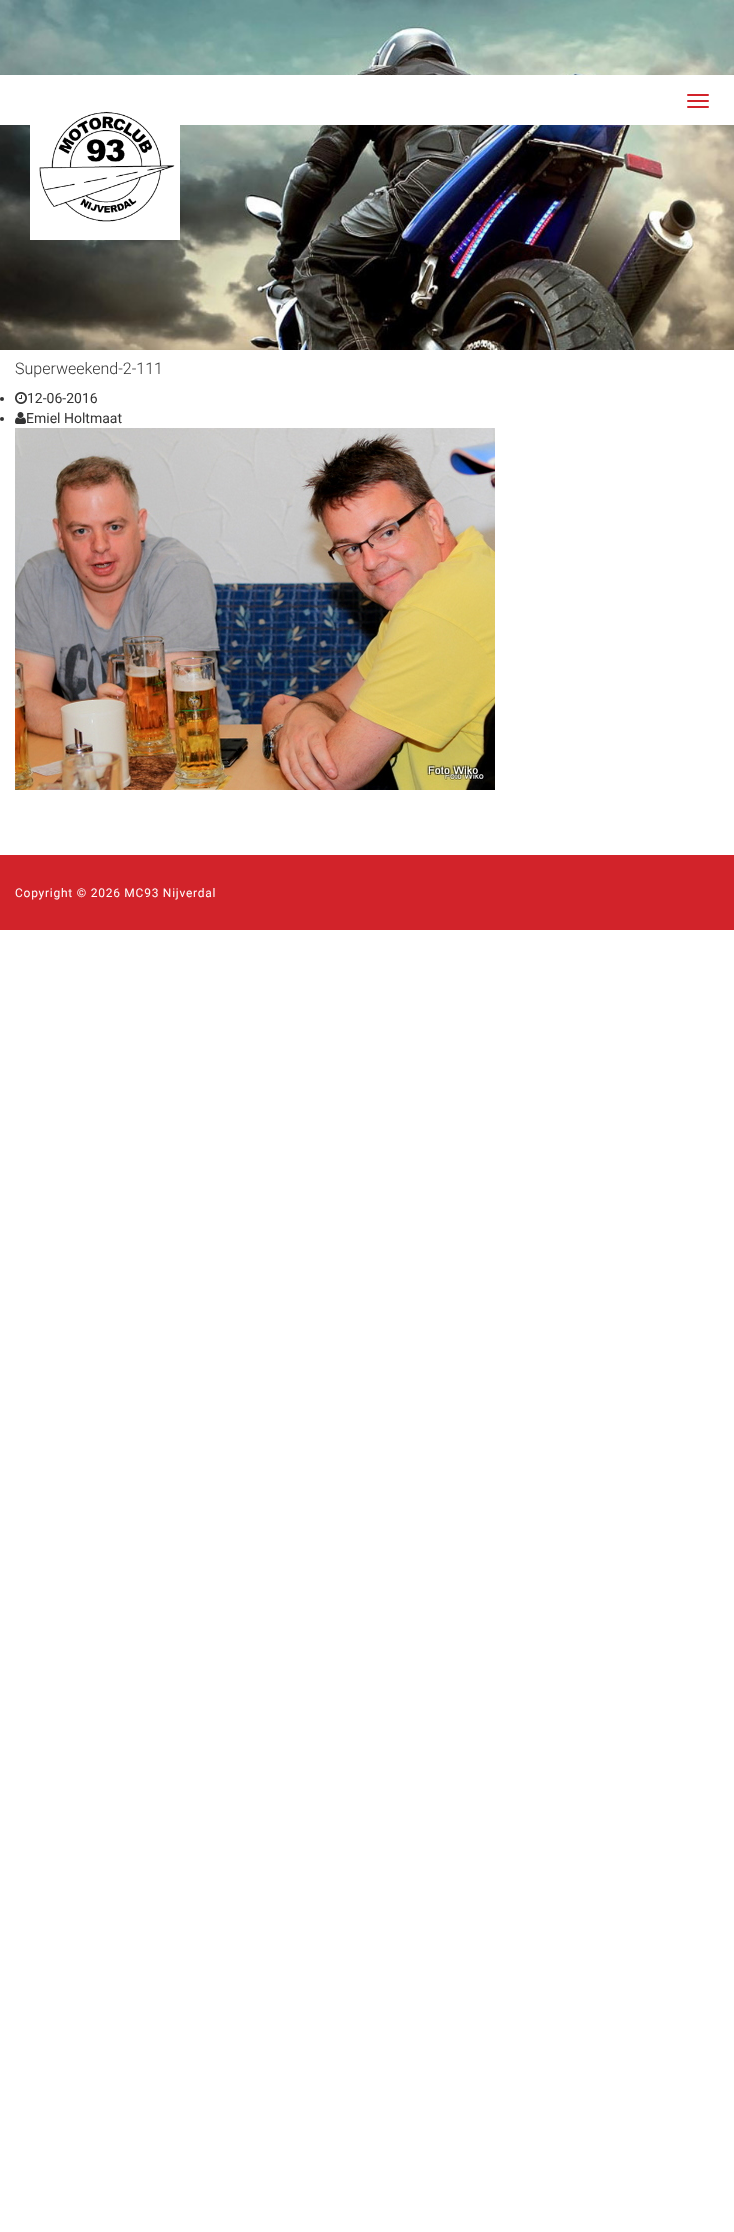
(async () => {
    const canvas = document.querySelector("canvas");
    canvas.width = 734;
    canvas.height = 2232;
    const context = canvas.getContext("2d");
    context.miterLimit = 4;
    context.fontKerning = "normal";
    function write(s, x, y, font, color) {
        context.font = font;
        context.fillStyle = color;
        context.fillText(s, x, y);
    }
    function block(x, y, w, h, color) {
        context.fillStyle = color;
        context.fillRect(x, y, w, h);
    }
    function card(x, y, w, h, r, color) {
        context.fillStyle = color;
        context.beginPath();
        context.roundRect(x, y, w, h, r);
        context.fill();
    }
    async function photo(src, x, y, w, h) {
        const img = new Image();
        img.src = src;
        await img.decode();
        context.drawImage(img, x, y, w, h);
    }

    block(0, 0, 734, 2232, "rgb(255, 255, 255)");
    await photo("media/1.png", 0, 0, 734, 350);
    block(0, 75, 734, 50, "rgb(255, 255, 255)");
    card(687, 94, 22, 2, 1, "rgb(210, 35, 42)");
    card(687, 100, 22, 2, 1, "rgb(210, 35, 42)");
    card(687, 106, 22, 2, 1, "rgb(210, 35, 42)");
    await photo("media/2.png", 30, 111, 150, 129);
    write("Superweekend-2-111", 15, 374, "300 16px Roboto", "rgb(51, 51, 51)");
    context.beginPath();
    context.arc(2, 399, 2, 0, Math.PI * 2);
    context.fill();
    await photo("media/3.png", 15, 392, 12, 12);
    write("12-06-2016", 27, 403, "14px Roboto", "rgb(51, 51, 51)");
    context.beginPath();
    context.arc(2, 419, 2, 0, Math.PI * 2);
    context.fill();
    await photo("media/4.png", 15, 412, 11, 12);
    write("Emiel Holtmaat", 26, 423, "14px Roboto", "rgb(51, 51, 51)");
    await photo("media/5.png", 15, 428, 480, 362);
    block(0, 855, 734, 75, "rgb(210, 35, 42)");
    context.letterSpacing = "0.75px";
    write("Copyright © 2026 MC93 Nijverdal", 15, 897, "12px Roboto", "rgb(255, 255, 255)");
})();
